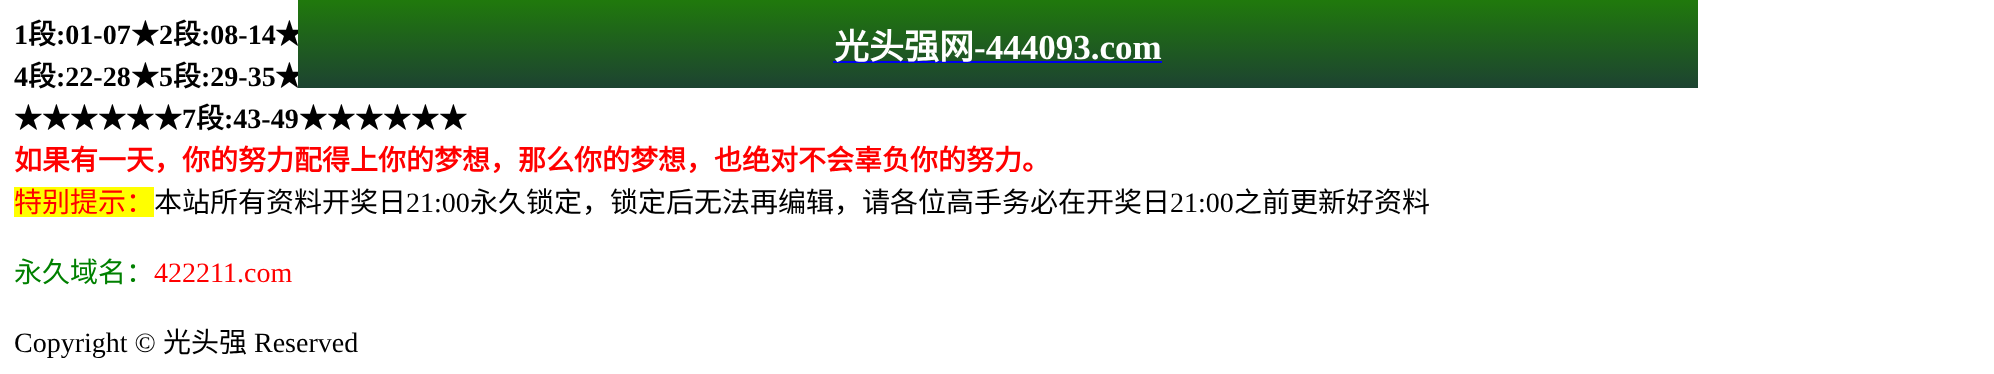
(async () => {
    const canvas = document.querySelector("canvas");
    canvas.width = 1994;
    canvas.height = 374;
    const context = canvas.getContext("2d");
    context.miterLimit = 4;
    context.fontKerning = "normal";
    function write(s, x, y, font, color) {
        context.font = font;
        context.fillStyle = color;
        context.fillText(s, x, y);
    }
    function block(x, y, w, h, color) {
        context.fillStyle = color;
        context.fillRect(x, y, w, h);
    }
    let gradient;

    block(0, 0, 1994, 374, "rgb(255, 255, 255)");
    write("1", 14, 44, "bold 28px Liberation Serif", "rgb(0, 0, 0)");
    write("段", 28, 44, "bold 28px Noto Sans CJK SC", "rgb(0, 0, 0)");
    write(":01-07", 56, 44, "bold 28px Liberation Serif", "rgb(0, 0, 0)");
    write("★", 131, 44, "bold 28px Noto Sans CJK SC", "rgb(0, 0, 0)");
    write("2", 159, 44, "bold 28px Liberation Serif", "rgb(0, 0, 0)");
    write("段", 173, 44, "bold 28px Noto Sans CJK SC", "rgb(0, 0, 0)");
    write(":08-14", 201, 44, "bold 28px Liberation Serif", "rgb(0, 0, 0)");
    write("★", 275, 44, "bold 28px Noto Sans CJK SC", "rgb(0, 0, 0)");
    write("4", 14, 86, "bold 28px Liberation Serif", "rgb(0, 0, 0)");
    write("段", 28, 86, "bold 28px Noto Sans CJK SC", "rgb(0, 0, 0)");
    write(":22-28", 56, 86, "bold 28px Liberation Serif", "rgb(0, 0, 0)");
    write("★", 131, 86, "bold 28px Noto Sans CJK SC", "rgb(0, 0, 0)");
    write("5", 159, 86, "bold 28px Liberation Serif", "rgb(0, 0, 0)");
    write("段", 173, 86, "bold 28px Noto Sans CJK SC", "rgb(0, 0, 0)");
    write(":29-35", 201, 86, "bold 28px Liberation Serif", "rgb(0, 0, 0)");
    write("★", 275, 86, "bold 28px Noto Sans CJK SC", "rgb(0, 0, 0)");
    write("★★★★★★", 14, 128, "bold 28px Noto Sans CJK SC", "rgb(0, 0, 0)");
    write("7", 182, 128, "bold 28px Liberation Serif", "rgb(0, 0, 0)");
    write("段", 196, 128, "bold 28px Noto Sans CJK SC", "rgb(0, 0, 0)");
    write(":43-49", 224, 128, "bold 28px Liberation Serif", "rgb(0, 0, 0)");
    write("★★★★★★", 299, 128, "bold 28px Noto Sans CJK SC", "rgb(0, 0, 0)");
    write("如果有一天，你的努力配得上你的梦想，那么你的梦想，也绝对不会辜负你的努力。", 14, 170, "bold 28px Noto Sans CJK SC", "rgb(255, 0, 0)");
    block(14, 187, 140, 30, "rgb(255, 255, 0)");
    write("特别提示：", 14, 212, "28px Noto Sans CJK SC", "rgb(255, 0, 0)");
    write("本站所有资料开奖日", 154, 212, "28px Noto Sans CJK SC", "rgb(0, 0, 0)");
    write("21:00", 406, 212, "28px Liberation Serif", "rgb(0, 0, 0)");
    write("永久锁定，锁定后无法再编辑，请各位高手务必在开奖日", 470, 212, "28px Noto Sans CJK SC", "rgb(0, 0, 0)");
    write("21:00", 1170, 212, "28px Liberation Serif", "rgb(0, 0, 0)");
    write("之前更新好资料", 1234, 212, "28px Noto Sans CJK SC", "rgb(0, 0, 0)");
    write("永久域名：", 14, 282, "28px Noto Sans CJK SC", "rgb(0, 128, 0)");
    write("422211.com", 154, 282, "28px Liberation Serif", "rgb(255, 0, 0)");
    write("Copyright ©", 14, 352, "28px Liberation Serif", "rgb(0, 0, 0)");
    write("光头强", 163, 352, "28px Noto Sans CJK SC", "rgb(0, 0, 0)");
    write("Reserved", 254, 352, "28px Liberation Serif", "rgb(0, 0, 0)");
    gradient = context.createLinearGradient(998, 88, 998, 0);
    gradient.addColorStop(0, "rgb(29, 67, 49)");
    gradient.addColorStop(1, "rgb(32, 121, 12)");
    context.fillStyle = gradient;
    context.fillRect(298, 0, 1400, 88);
    block(833, 61, 329, 2, "rgb(0, 0, 238)");
    write("光头强网", 834, 59, "bold 35px Noto Sans CJK SC", "rgb(255, 255, 255)");
    write("-444093.com", 974, 59, "bold 35px Liberation Serif", "rgb(255, 255, 255)");
})();
